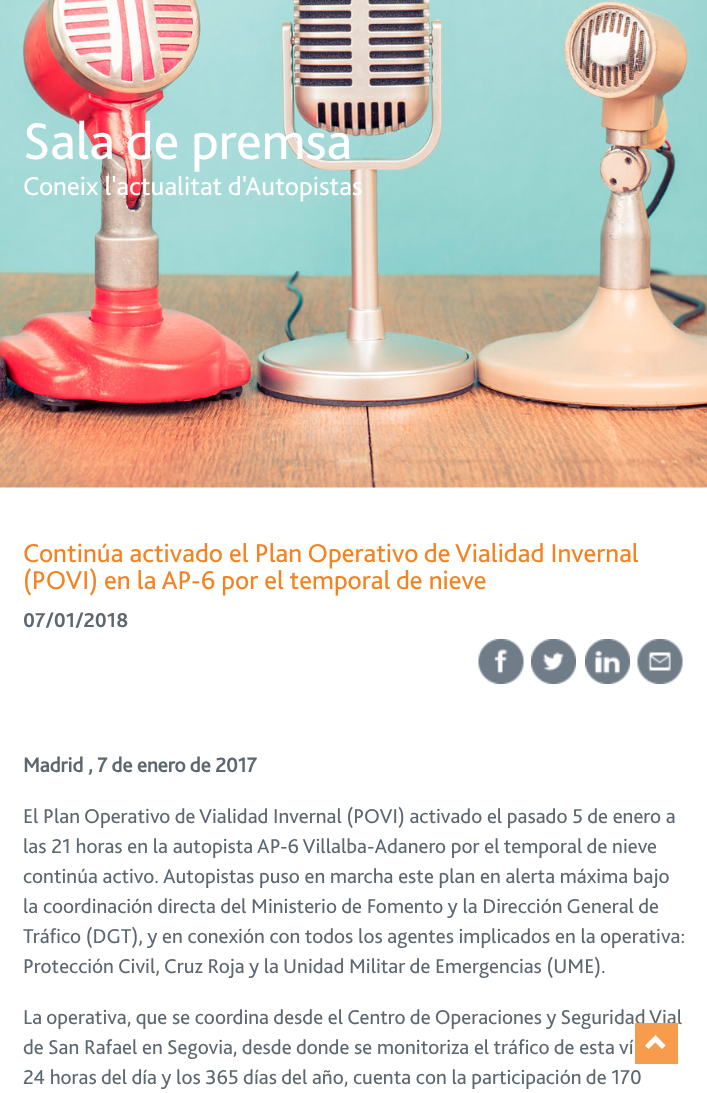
(async () => {
    const canvas = document.querySelector("canvas");
    canvas.width = 707;
    canvas.height = 1093;
    const context = canvas.getContext("2d");
    context.miterLimit = 4;
    context.fontKerning = "normal";
    function write(s, x, y, font, color) {
        context.font = font;
        context.fillStyle = color;
        context.fillText(s, x, y);
    }
    function block(x, y, w, h, color) {
        context.fillStyle = color;
        context.fillRect(x, y, w, h);
    }
    async function photo(src, x, y, w, h) {
        const img = new Image();
        img.src = src;
        await img.decode();
        context.drawImage(img, x, y, w, h);
    }

    block(0, 0, 707, 1093, "rgb(255, 255, 255)");
    await photo("media/1.png", 0, 0, 707, 488);
    write("Sala de premsa", 23, 159, "54px 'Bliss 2'", "rgb(255, 255, 255)");
    write("Coneix l'actualitat d'Autopistas", 23, 195, "27px 'Bliss 2'", "rgb(255, 255, 255)");
    write("Continúa activado el Plan Operativo de Vialidad Invernal", 23, 562, "27px 'Bliss 2'", "rgb(245, 130, 32)");
    write("(POVI) en la AP-6 por el temporal de nieve", 23, 589, "27px 'Bliss 2'", "rgb(245, 130, 32)");
    write("07/01/2018", 23, 627, "bold 21px 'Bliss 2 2'", "rgb(93, 103, 112)");
    await photo("media/2.png", 478, 639, 46, 45);
    await photo("media/3.png", 531, 639, 45, 45);
    await photo("media/4.png", 585, 639, 45, 45);
    await photo("media/5.png", 637, 639, 46, 45);
    write("Madrid , 7 de enero de 2017", 23, 772, "bold 21px 'Bliss 2'", "rgb(93, 103, 112)");
    write("El Plan Operativo de Vialidad Invernal (POVI) activado el pasado 5 de enero a", 23, 823, "21px 'Bliss 2'", "rgb(93, 103, 112)");
    write("las 21 horas en la autopista AP-6 Villalba-Adanero por el temporal de nieve", 23, 853, "21px 'Bliss 2'", "rgb(93, 103, 112)");
    write("continúa activo. Autopistas puso en marcha este plan en alerta máxima bajo", 23, 883, "21px 'Bliss 2'", "rgb(93, 103, 112)");
    write("la coordinación directa del Ministerio de Fomento y la Dirección General de", 23, 913, "21px 'Bliss 2'", "rgb(93, 103, 112)");
    write("Tráfico (DGT), y en conexión con todos los agentes implicados en la operativa:", 23, 943, "21px 'Bliss 2'", "rgb(93, 103, 112)");
    write("Protección Civil, Cruz Roja y la Unidad Militar de Emergencias (UME).", 23, 973, "21px 'Bliss 2'", "rgb(93, 103, 112)");
    write("La operativa, que se coordina desde el Centro de Operaciones y Seguridad Vial", 23, 1024, "21px 'Bliss 2'", "rgb(93, 103, 112)");
    write("de San Rafael en Segovia, desde donde se monitoriza el tráfico de esta ví", 23, 1054, "21px 'Bliss 2'", "rgb(93, 103, 112)");
    write("24 horas del día y los 365 días del año, cuenta con la participación de 170", 23, 1084, "21px 'Bliss 2'", "rgb(93, 103, 112)");
    block(635, 1023, 43, 41, "rgb(247, 155, 77)");
    context.fillStyle = "rgb(255, 255, 255)";
    context.beginPath();
    context.moveTo(665.5, 1045.5);
    context.lineTo(662, 1049);
    context.lineTo(655.5, 1042.5);
    context.lineTo(648.5, 1049);
    context.lineTo(645, 1045.5);
    context.lineTo(655.5, 1035);
    context.closePath();
    context.fill();
})();
